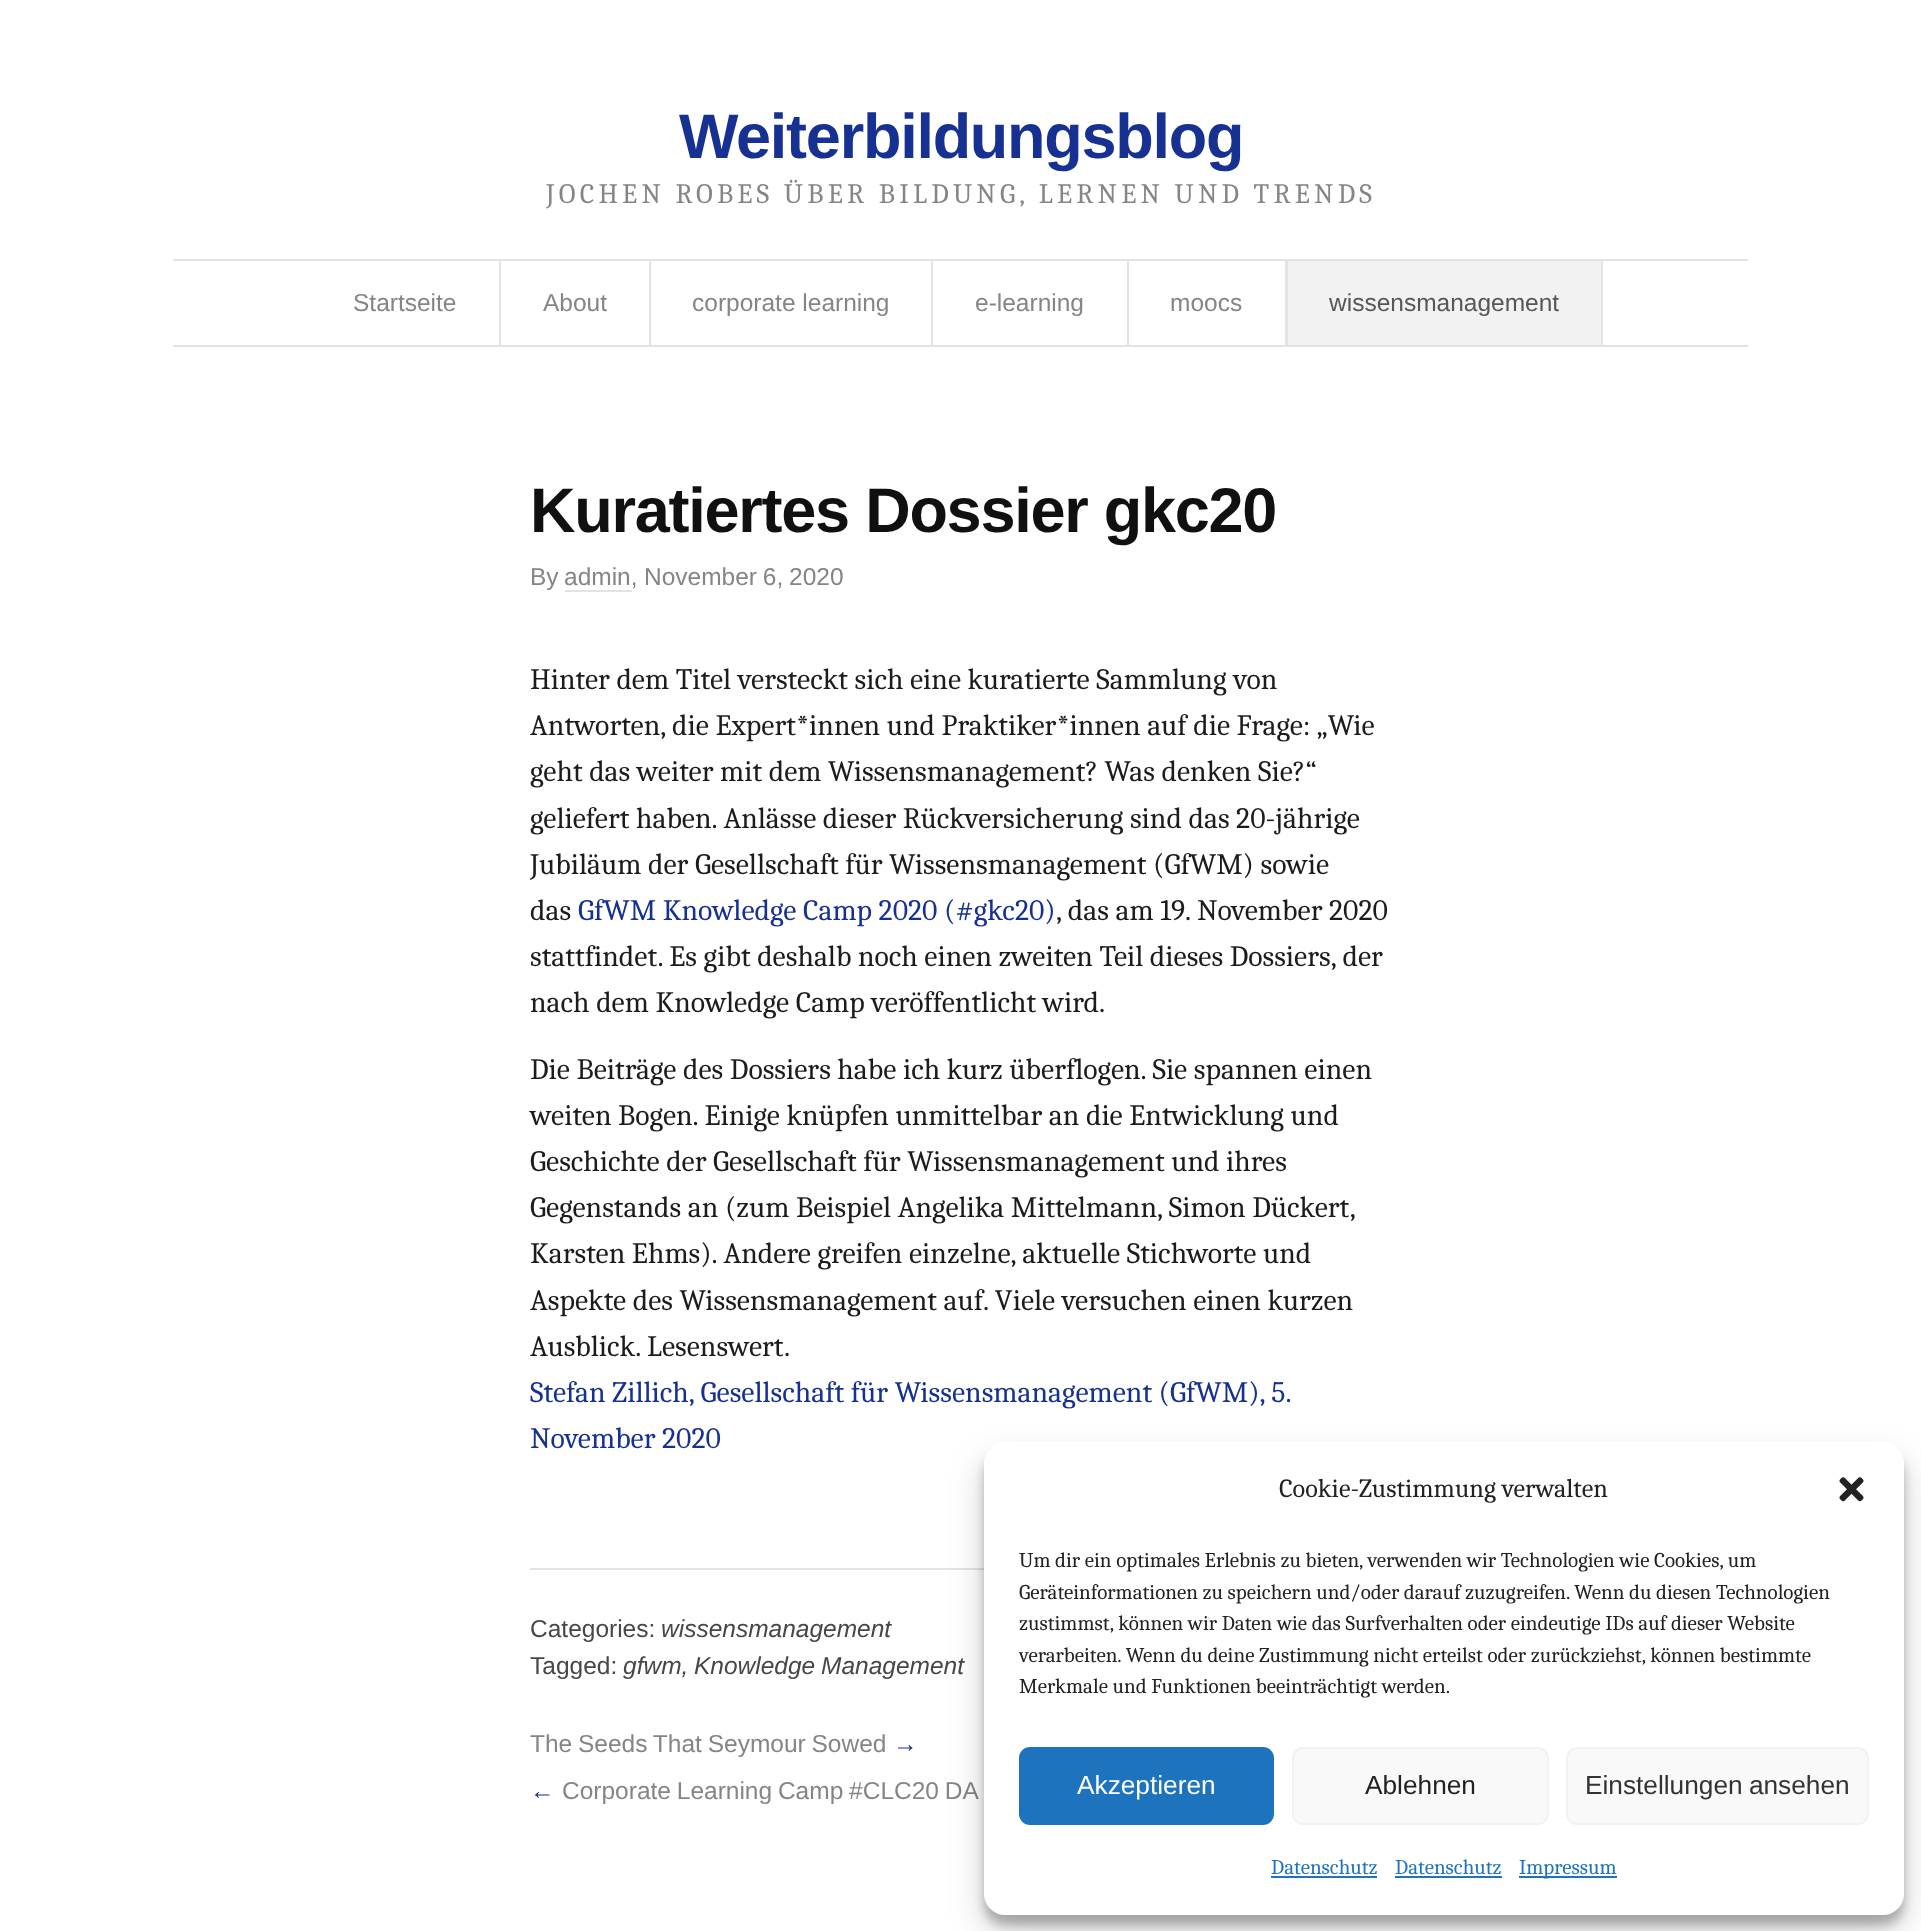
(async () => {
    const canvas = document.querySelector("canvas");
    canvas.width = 1921;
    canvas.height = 1931;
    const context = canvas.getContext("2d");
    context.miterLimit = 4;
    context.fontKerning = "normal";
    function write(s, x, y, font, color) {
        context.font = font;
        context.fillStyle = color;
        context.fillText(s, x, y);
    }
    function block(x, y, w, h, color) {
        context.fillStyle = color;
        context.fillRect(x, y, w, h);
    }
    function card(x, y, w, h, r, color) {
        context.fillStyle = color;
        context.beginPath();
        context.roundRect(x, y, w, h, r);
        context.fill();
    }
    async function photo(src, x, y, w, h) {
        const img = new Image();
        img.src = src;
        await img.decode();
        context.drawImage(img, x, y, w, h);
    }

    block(0, 0, 1921, 1931, "rgb(255, 255, 255)");
    context.letterSpacing = "-1.25px";
    write("Weiterbildungsblog", 679, 158, "bold 63px Liberation Sans", "rgb(23, 49, 146)");
    context.letterSpacing = "4.2px";
    write("JOCHEN ROBES ÜBER BILDUNG, LERNEN UND TRENDS", 546, 203, "28px Caladea", "rgb(133, 133, 133)");
    block(173, 259, 1575, 2, "rgb(227, 227, 227)");
    block(173, 345, 1575, 2, "rgb(227, 227, 227)");
    block(499, 261, 2, 84, "rgb(227, 227, 227)");
    context.letterSpacing = "0px";
    write("Startseite", 353, 311, "24.5px Liberation Sans", "rgb(133, 133, 133)");
    block(649, 261, 2, 84, "rgb(227, 227, 227)");
    write("About", 543, 311, "24.5px Liberation Sans", "rgb(133, 133, 133)");
    block(931, 261, 2, 84, "rgb(227, 227, 227)");
    write("corporate learning", 692, 311, "24.5px Liberation Sans", "rgb(133, 133, 133)");
    block(1127, 261, 2, 84, "rgb(227, 227, 227)");
    write("e-learning", 975, 311, "24.5px Liberation Sans", "rgb(133, 133, 133)");
    block(1285, 261, 3, 84, "rgb(227, 227, 227)");
    write("moocs", 1170, 311, "24.5px Liberation Sans", "rgb(133, 133, 133)");
    block(1288, 261, 313, 84, "rgb(242, 242, 242)");
    block(1601, 261, 2, 84, "rgb(227, 227, 227)");
    write("wissensmanagement", 1329, 311, "24.5px Liberation Sans", "rgb(87, 87, 87)");
    context.letterSpacing = "-1.25px";
    write("Kuratiertes Dossier gkc20", 530, 532, "bold 63px Liberation Sans", "rgb(16, 16, 16)");
    context.letterSpacing = "0px";
    write("By", 530, 585, "24.5px Liberation Sans", "rgb(133, 133, 133)");
    write("admin,", 564, 585, "24.5px Liberation Sans", "rgb(133, 133, 133)");
    block(565, 590, 67, 2, "rgb(227, 227, 227)");
    context.wordSpacing = "-1px";
    write("November 6, 2020", 644, 585, "24.5px Liberation Sans", "rgb(133, 133, 133)");
    context.wordSpacing = "0px";
    write("Hinter dem Titel versteckt sich eine kuratierte Sammlung von", 530, 689, "29.75px Caladea", "rgb(28, 28, 28)");
    write("Antworten, die Expert*innen und Praktiker*innen auf die Frage: „Wie", 530, 735, "29.75px Caladea", "rgb(28, 28, 28)");
    write("geht das weiter mit dem Wissensmanagement? Was denken Sie?“", 530, 781, "29.75px Caladea", "rgb(28, 28, 28)");
    write("geliefert haben. Anlässe dieser Rückversicherung sind das 20-jährige", 530, 828, "29.75px Caladea", "rgb(28, 28, 28)");
    write("Jubiläum der Gesellschaft für Wissensmanagement (GfWM) sowie", 530, 874, "29.75px Caladea", "rgb(28, 28, 28)");
    write("das", 530, 920, "29.75px Caladea", "rgb(28, 28, 28)");
    write("GfWM Knowledge Camp 2020 (#gkc20)", 578, 920, "29.75px Caladea", "rgb(23, 49, 146)");
    write(", das am 19. November 2020", 1056, 920, "29.75px Caladea", "rgb(28, 28, 28)");
    write("stattfindet. Es gibt deshalb noch einen zweiten Teil dieses Dossiers, der", 530, 966, "29.75px Caladea", "rgb(28, 28, 28)");
    write("nach dem Knowledge Camp veröffentlicht wird.", 530, 1012, "29.75px Caladea", "rgb(28, 28, 28)");
    write("Die Beiträge des Dossiers habe ich kurz überflogen. Sie spannen einen", 530, 1079, "29.75px Caladea", "rgb(28, 28, 28)");
    write("weiten Bogen. Einige knüpfen unmittelbar an die Entwicklung und", 530, 1125, "29.75px Caladea", "rgb(28, 28, 28)");
    write("Geschichte der Gesellschaft für Wissensmanagement und ihres", 530, 1171, "29.75px Caladea", "rgb(28, 28, 28)");
    write("Gegenstands an (zum Beispiel Angelika Mittelmann, Simon Dückert,", 530, 1217, "29.75px Caladea", "rgb(28, 28, 28)");
    write("Karsten Ehms). Andere greifen einzelne, aktuelle Stichworte und", 530, 1263, "29.75px Caladea", "rgb(28, 28, 28)");
    write("Aspekte des Wissensmanagement auf. Viele versuchen einen kurzen", 530, 1310, "29.75px Caladea", "rgb(28, 28, 28)");
    write("Ausblick. Lesenswert.", 530, 1356, "29.75px Caladea", "rgb(28, 28, 28)");
    write("Stefan Zillich, Gesellschaft für Wissensmanagement (GfWM), 5.", 530, 1402, "29.75px Caladea", "rgb(23, 49, 146)");
    write("November 2020", 530, 1448, "29.75px Caladea", "rgb(23, 49, 146)");
    block(530, 1568, 454, 2, "rgb(227, 227, 227)");
    write("Categories:", 530, 1637, "24.5px Liberation Sans", "rgb(71, 71, 71)");
    write("wissensmanagement", 661, 1637, "italic 24.5px Liberation Sans", "rgb(71, 71, 71)");
    write("Tagged:", 530, 1674, "24.5px Liberation Sans", "rgb(71, 71, 71)");
    write("gfwm,", 623, 1674, "italic 24.5px Liberation Sans", "rgb(71, 71, 71)");
    context.wordSpacing = "-1px";
    write("Knowledge Management", 694, 1674, "italic 24.5px Liberation Sans", "rgb(71, 71, 71)");
    write("The Seeds That Seymour Sowed", 530, 1752, "24.5px Liberation Sans", "rgb(133, 133, 133)");
    context.wordSpacing = "0px";
    write("→", 893, 1752, "24.5px Liberation Sans", "rgb(23, 49, 146)");
    write("←", 530, 1799, "24.5px Liberation Sans", "rgb(23, 49, 146)");
    context.wordSpacing = "-1px";
    write("Corporate Learning Camp #CLC20 DA", 562, 1799, "24.5px Liberation Sans", "rgb(133, 133, 133)");
    context.fillStyle = "rgba(0, 0, 0, 0.23)";
    context.filter = "blur(5px)";
    context.beginPath();
    context.roundRect(984, 1453, 920, 472, 21);
    context.fill();
    context.filter = "none";
    context.fillStyle = "rgba(0, 0, 0, 0.19)";
    context.filter = "blur(17.5px)";
    context.beginPath();
    context.roundRect(984, 1460, 920, 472, 21);
    context.fill();
    context.filter = "none";
    card(984, 1442, 920, 473, 21, "rgb(255, 255, 255)");
    context.wordSpacing = "0px";
    write("Cookie-Zustimmung verwalten", 1279, 1497, "26.25px Caladea", "rgb(34, 34, 34)");
    await photo("media/1.png", 1839, 1477, 25, 25);
    write("Um dir ein optimales Erlebnis zu bieten, verwenden wir Technologien wie Cookies, um", 1019, 1567, "21px Caladea", "rgb(34, 34, 34)");
    write("Geräteinformationen zu speichern und/oder darauf zuzugreifen. Wenn du diesen Technologien", 1019, 1599, "21px Caladea", "rgb(34, 34, 34)");
    write("zustimmst, können wir Daten wie das Surfverhalten oder eindeutige IDs auf dieser Website", 1019, 1630, "21px Caladea", "rgb(34, 34, 34)");
    context.save();
    context.beginPath();
    context.rect(1019, 1545, 850, 167);
    context.clip();
    write("verarbeiten. Wenn du deine Zustimmung nicht erteilst oder zurückziehst, können bestimmte", 1019, 1662, "21px Caladea", "rgb(34, 34, 34)");
    context.restore();
    write("Merkmale und Funktionen beeinträchtigt werden.", 1019, 1693, "21px Caladea", "rgb(34, 34, 34)");
    context.fillStyle = "rgb(30, 115, 190)";
    context.beginPath();
    context.roundRect(1020, 1748, 253, 76, 10);
    context.fill();
    context.strokeStyle = "rgb(30, 115, 190)";
    context.lineWidth = 2;
    context.stroke();
    write("Akzeptieren", 1077, 1794, "26.25px Liberation Sans", "rgb(255, 255, 255)");
    context.fillStyle = "rgb(249, 249, 249)";
    context.beginPath();
    context.roundRect(1293, 1748, 255, 76, 10);
    context.fill();
    context.strokeStyle = "rgb(242, 242, 242)";
    context.stroke();
    write("Ablehnen", 1365, 1794, "26.25px Liberation Sans", "rgb(34, 34, 34)");
    context.fillStyle = "rgb(249, 249, 249)";
    context.beginPath();
    context.roundRect(1567, 1748, 301, 76, 10);
    context.fill();
    context.stroke();
    context.wordSpacing = "-1px";
    write("Einstellungen ansehen", 1585, 1794, "26.25px Liberation Sans", "rgb(51, 51, 51)");
    context.wordSpacing = "0px";
    write("Datenschutz", 1271, 1874, "21px Caladea", "rgb(30, 115, 190)");
    block(1271, 1876, 106, 2, "rgb(30, 115, 190)");
    write("Datenschutz", 1395, 1874, "21px Caladea", "rgb(30, 115, 190)");
    block(1395, 1876, 107, 2, "rgb(30, 115, 190)");
    block(1519, 1876, 98, 2, "rgb(30, 115, 190)");
    write("Impressum", 1519, 1874, "21px Caladea", "rgb(30, 115, 190)");
})();
